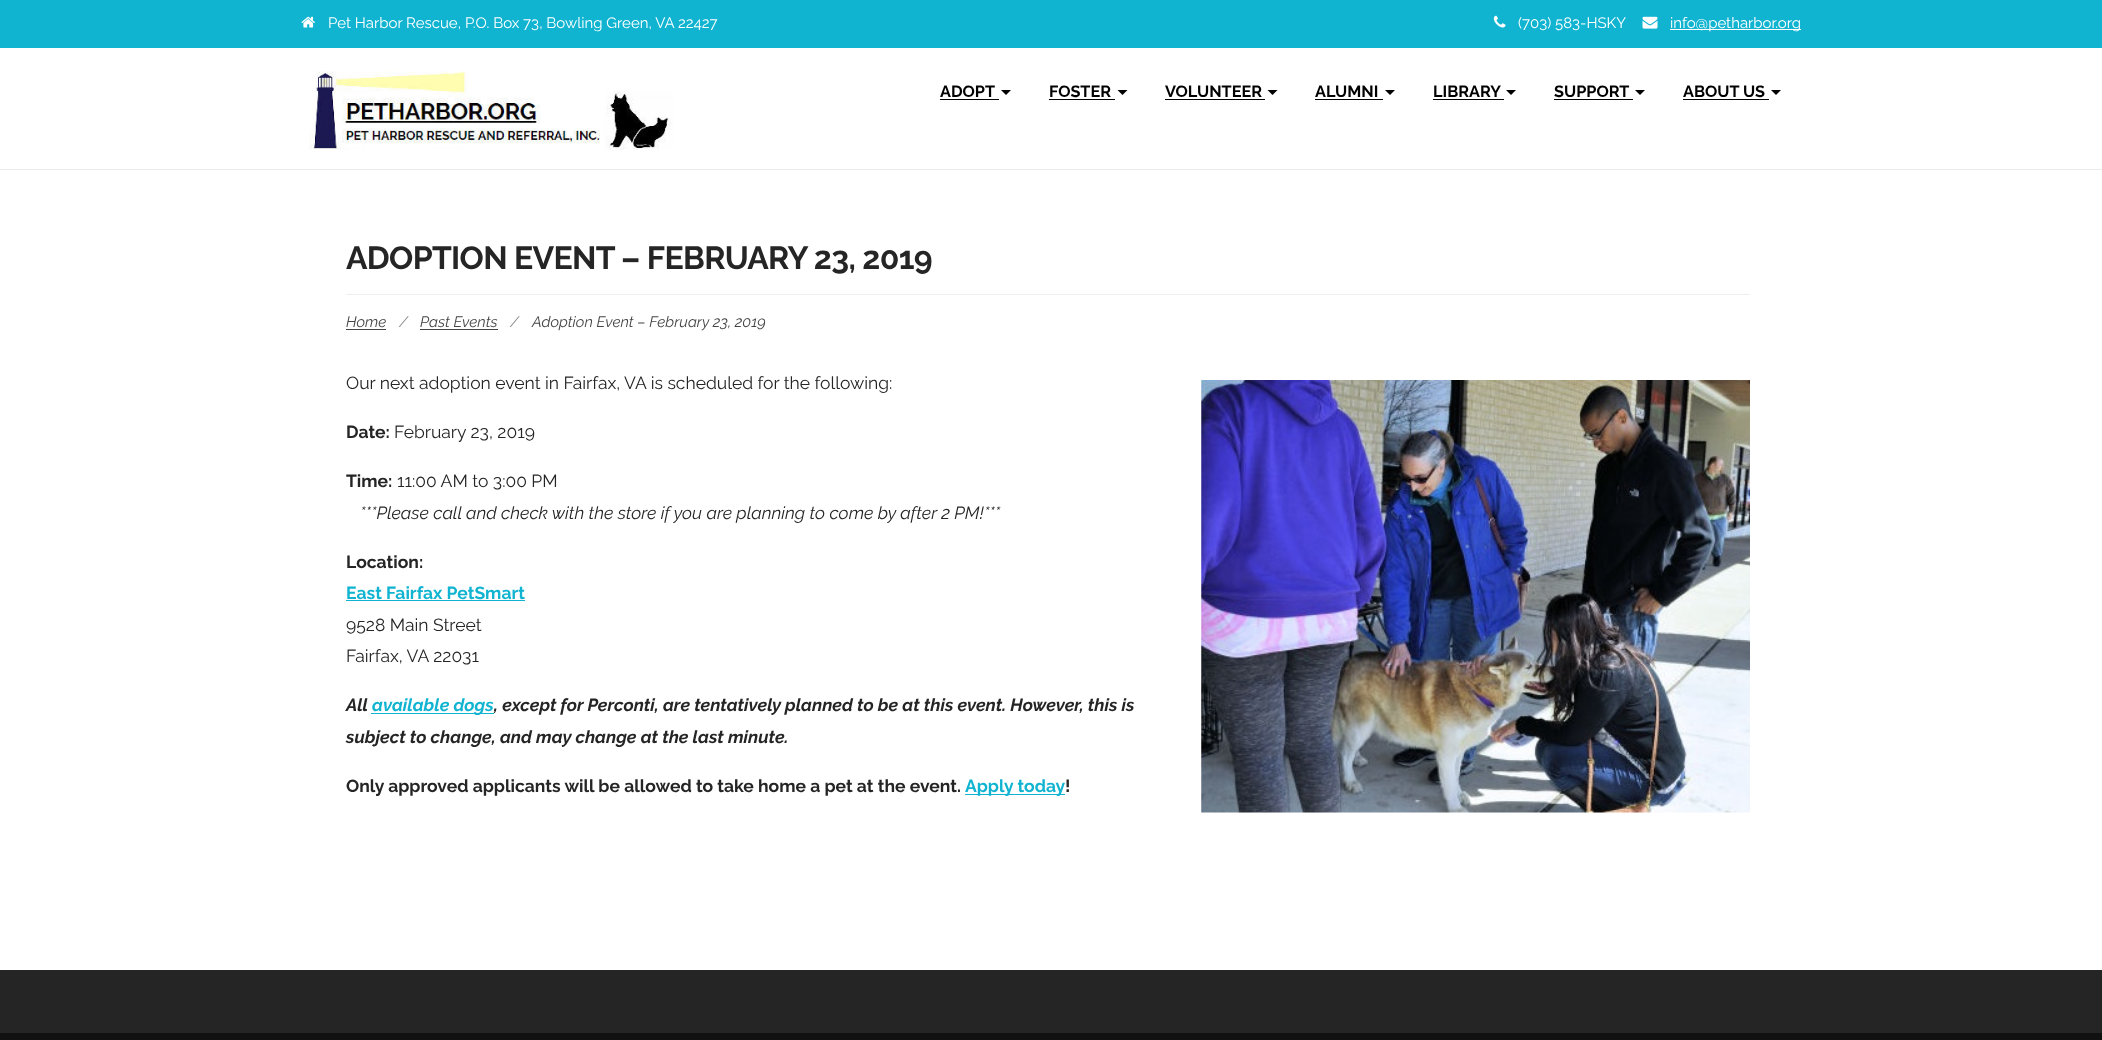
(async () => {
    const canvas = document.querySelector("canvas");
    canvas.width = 2102;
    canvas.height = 1040;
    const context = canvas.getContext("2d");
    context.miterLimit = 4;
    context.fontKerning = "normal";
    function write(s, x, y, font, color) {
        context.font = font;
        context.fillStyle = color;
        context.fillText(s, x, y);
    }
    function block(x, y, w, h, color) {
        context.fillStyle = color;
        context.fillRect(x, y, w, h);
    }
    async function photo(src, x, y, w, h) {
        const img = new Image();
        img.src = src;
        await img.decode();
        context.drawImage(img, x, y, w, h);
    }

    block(0, 0, 2102, 1040, "rgb(255, 255, 255)");
    block(0, 0, 2102, 48, "rgb(16, 180, 209)");
    await photo("media/1.png", 301, 16, 14, 12);
    write("Pet Harbor Rescue, P.O. Box 73, Bowling Green, VA 22427", 328, 28, "15px Raleway", "rgb(255, 255, 255)");
    await photo("media/2.png", 1493, 15, 13, 13);
    write("(703) 583-HSKY", 1518, 28, "15px Raleway", "rgb(255, 255, 255)");
    await photo("media/3.png", 1642, 16, 16, 13);
    block(1670, 29, 131, 1, "rgb(255, 255, 255)");
    write("info@petharbor.org", 1670, 28, "15px Raleway", "rgb(255, 255, 255)");
    block(0, 169, 2102, 1, "rgb(234, 234, 234)");
    await photo("media/4.png", 309, 71, 364, 79);
    write("ADOPT", 940, 97, "bold 16.25px Raleway", "rgb(0, 0, 0)");
    block(940, 99, 59, 1, "rgb(0, 0, 0)");
    context.beginPath();
    context.moveTo(1001, 90);
    context.lineTo(1011, 90);
    context.lineTo(1006, 95);
    context.closePath();
    context.fill();
    write("FOSTER", 1049, 97, "bold 16.25px Raleway", "rgb(0, 0, 0)");
    block(1049, 99, 66, 1, "rgb(0, 0, 0)");
    context.beginPath();
    context.moveTo(1117.5, 90);
    context.lineTo(1127.5, 90);
    context.lineTo(1122.5, 95);
    context.closePath();
    context.fill();
    write("VOLUNTEER", 1165, 97, "bold 16.25px Raleway", "rgb(0, 0, 0)");
    block(1165, 99, 100, 1, "rgb(0, 0, 0)");
    context.beginPath();
    context.moveTo(1267.5, 90);
    context.lineTo(1277.5, 90);
    context.lineTo(1272.5, 95);
    context.closePath();
    context.fill();
    write("ALUMNI", 1315, 97, "bold 16.25px Raleway", "rgb(0, 0, 0)");
    block(1315, 99, 68, 1, "rgb(0, 0, 0)");
    context.beginPath();
    context.moveTo(1385, 90);
    context.lineTo(1395, 90);
    context.lineTo(1390, 95);
    context.closePath();
    context.fill();
    write("LIBRARY", 1433, 97, "bold 16.25px Raleway", "rgb(0, 0, 0)");
    block(1433, 99, 71, 1, "rgb(0, 0, 0)");
    context.beginPath();
    context.moveTo(1506, 90);
    context.lineTo(1516, 90);
    context.lineTo(1511, 95);
    context.closePath();
    context.fill();
    write("SUPPORT", 1554, 97, "bold 16.25px Raleway", "rgb(0, 0, 0)");
    block(1554, 99, 79, 1, "rgb(0, 0, 0)");
    context.beginPath();
    context.moveTo(1635, 90);
    context.lineTo(1645, 90);
    context.lineTo(1640, 95);
    context.closePath();
    context.fill();
    write("ABOUT US", 1683, 97, "bold 16.25px Raleway", "rgb(0, 0, 0)");
    block(1683, 99, 86, 1, "rgb(0, 0, 0)");
    context.beginPath();
    context.moveTo(1771, 90);
    context.lineTo(1781, 90);
    context.lineTo(1776, 95);
    context.closePath();
    context.fill();
    context.letterSpacing = "-0.65px";
    write("ADOPTION EVENT – FEBRUARY 23, 2019", 346, 269, "bold 32px Raleway", "rgb(37, 37, 37)");
    block(346, 294, 1404, 1, "rgb(238, 238, 238)");
    context.letterSpacing = "0px";
    write("Home", 346, 327, "italic 15px Raleway", "rgb(68, 68, 68)");
    block(346, 329, 40, 1, "rgb(68, 68, 68)");
    write("/", 399, 327, "italic 15px Raleway", "rgb(136, 136, 136)");
    write("Past Events", 420, 327, "italic 15px Raleway", "rgb(68, 68, 68)");
    block(420, 329, 78, 1, "rgb(68, 68, 68)");
    write("/", 510, 327, "italic 15px Raleway", "rgb(136, 136, 136)");
    write("Adoption Event – February 23, 2019", 532, 327, "italic 15px Raleway", "rgb(68, 68, 68)");
    write("Our next adoption event in Fairfax, VA is scheduled for the following:", 346, 389, "17.5px Raleway", "rgb(37, 37, 37)");
    await photo("media/5.png", 1201, 380, 549, 433);
    write("Date:", 346, 438, "bold 17.5px Raleway", "rgb(37, 37, 37)");
    write("February 23, 2019", 394, 438, "17.5px Raleway", "rgb(37, 37, 37)");
    write("Time:", 346, 487, "bold 17.5px Raleway", "rgb(37, 37, 37)");
    write("11:00 AM to 3:00 PM", 397, 487, "17.5px Raleway", "rgb(37, 37, 37)");
    write("***Please call and check with the store if you are planning to come by after 2 PM!***", 360, 519, "italic 17.5px Raleway", "rgb(37, 37, 37)");
    write("Location:", 346, 568, "bold 17.5px Raleway", "rgb(37, 37, 37)");
    write("East Fairfax PetSmart", 346, 599, "bold 17.5px Raleway", "rgb(16, 180, 209)");
    block(346, 600, 179, 1, "rgb(16, 180, 209)");
    write("9528 Main Street", 346, 631, "17.5px Raleway", "rgb(37, 37, 37)");
    write("Fairfax, VA 22031", 346, 662, "17.5px Raleway", "rgb(37, 37, 37)");
    write("All", 346, 711, "italic bold 17.5px Raleway", "rgb(37, 37, 37)");
    block(371, 713, 123, 1, "rgb(16, 180, 209)");
    write("available dogs", 372, 711, "italic bold 17.5px Raleway", "rgb(16, 180, 209)");
    write(", except for Perconti, are tentatively planned to be at this event. However, this is", 494, 711, "italic bold 17.5px Raleway", "rgb(37, 37, 37)");
    write("subject to change, and may change at the last minute.", 346, 743, "italic bold 17.5px Raleway", "rgb(37, 37, 37)");
    write("Only approved applicants will be allowed to take home a pet at the event.", 346, 792, "bold 17.5px Raleway", "rgb(37, 37, 37)");
    block(965, 794, 100, 1, "rgb(16, 180, 209)");
    write("Apply today", 965, 792, "bold 17.5px Raleway", "rgb(16, 180, 209)");
    write("!", 1065, 792, "bold 17.5px Raleway", "rgb(37, 37, 37)");
    block(0, 970, 2102, 63, "rgb(37, 37, 37)");
    block(0, 1033, 2102, 7, "rgb(17, 17, 17)");
})();
